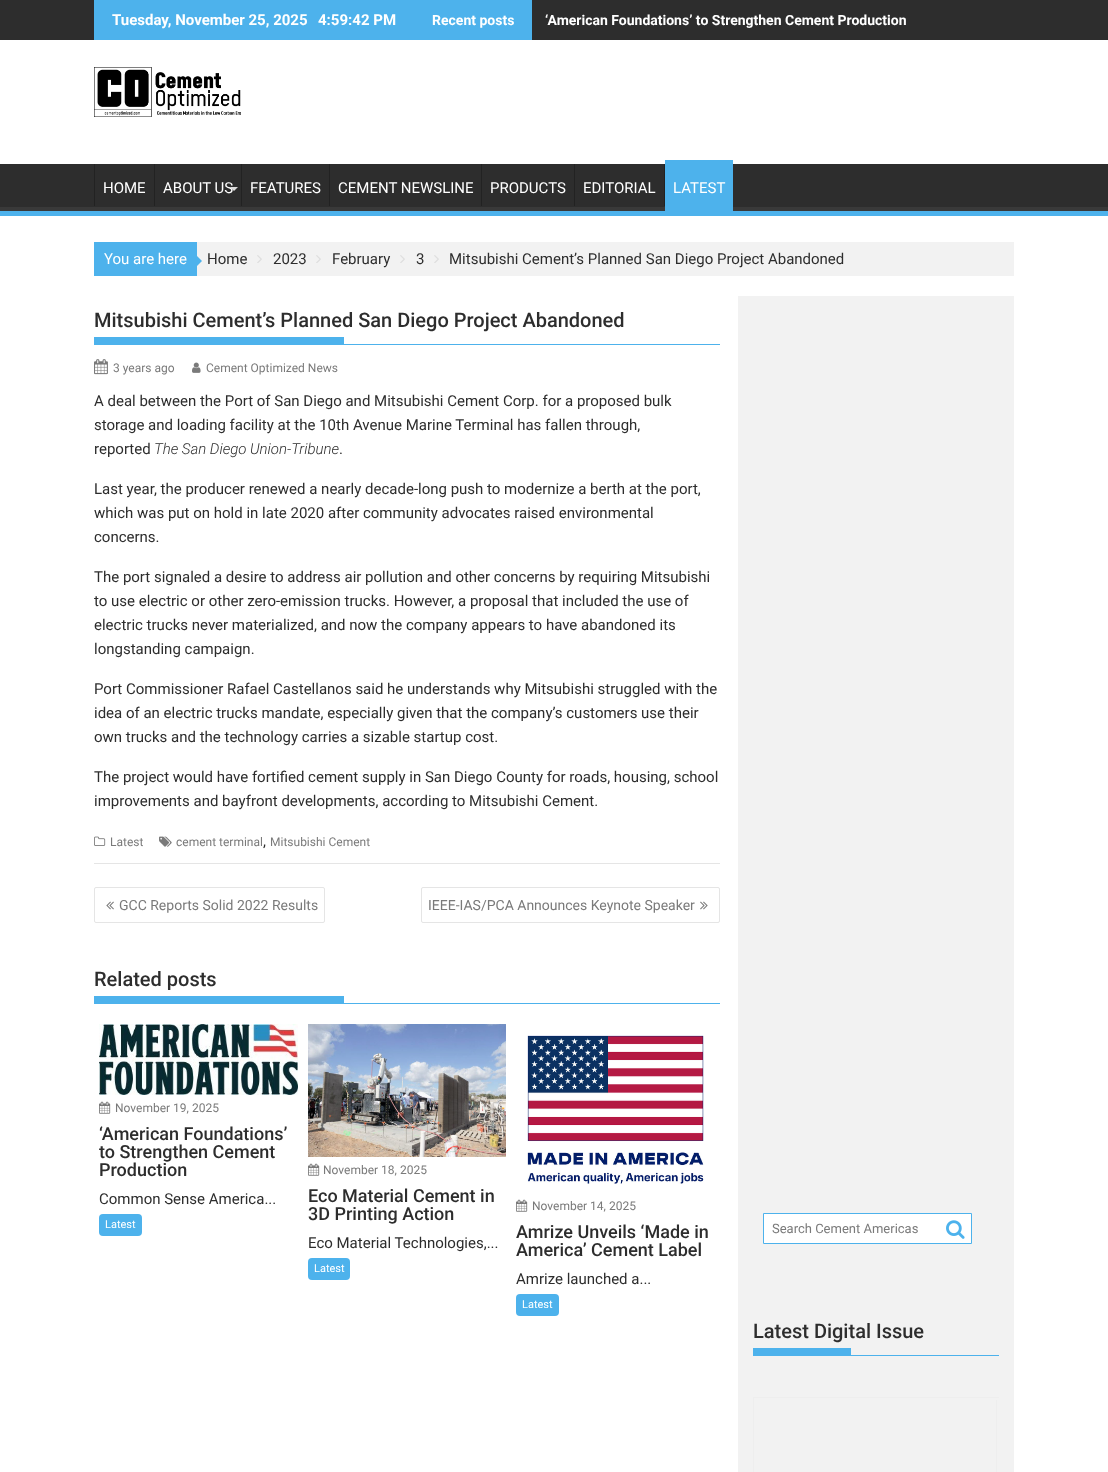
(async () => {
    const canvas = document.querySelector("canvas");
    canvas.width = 1108;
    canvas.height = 1472;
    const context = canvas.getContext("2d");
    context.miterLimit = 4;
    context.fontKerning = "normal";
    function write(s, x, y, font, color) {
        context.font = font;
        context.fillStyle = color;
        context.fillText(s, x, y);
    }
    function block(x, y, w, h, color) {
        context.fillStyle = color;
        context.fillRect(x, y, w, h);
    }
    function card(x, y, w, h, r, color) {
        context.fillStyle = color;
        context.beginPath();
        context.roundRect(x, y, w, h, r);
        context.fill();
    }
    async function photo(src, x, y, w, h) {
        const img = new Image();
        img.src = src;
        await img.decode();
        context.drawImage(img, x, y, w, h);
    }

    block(0, 0, 1108, 1472, "rgb(255, 255, 255)");
    block(0, 0, 1108, 40, "rgb(45, 45, 45)");
    block(94, 0, 438, 40, "rgb(77, 178, 236)");
    write("Tuesday, November 25, 2025", 112, 25, "bold 15px Roboto", "rgb(255, 255, 255)");
    write("4:59:42 PM", 318, 25, "bold 15px Roboto", "rgb(255, 255, 255)");
    write("Recent posts", 432, 25, "bold 14px Roboto", "rgb(255, 255, 255)");
    write("‘American Foundations’ to Strengthen Cement Production", 545, 25, "bold 14px Roboto", "rgb(255, 255, 255)");
    await photo("media/1.png", 94, 67, 147, 50);
    block(0, 164, 1108, 43, "rgb(45, 45, 45)");
    context.save();
    context.beginPath();
    context.rect(0, 164, 1108, 47);
    context.clip();
    context.fillStyle = "rgb(57, 57, 57)";
    context.beginPath();
    context.moveTo(-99, 65);
    context.lineTo(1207, 65);
    context.lineTo(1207, 310);
    context.lineTo(-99, 310);
    context.closePath();
    context.moveTo(-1, 158);
    context.lineTo(1107, 158);
    context.bezierCurveTo(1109, 158, 1108, 166, 1108, 167);
    context.lineTo(1108, 207);
    context.lineTo(1107, 207);
    context.lineTo(-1, 207);
    context.lineTo(-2, 206);
    context.lineTo(-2, 158);
    context.closePath();
    context.fill("evenodd");
    context.restore();
    block(0, 211, 1108, 5, "rgb(77, 178, 236)");
    block(94, 164, 1, 42, "rgb(34, 34, 34)");
    write("HOME", 103, 193, "15px Roboto", "rgb(255, 255, 255)");
    block(154, 164, 1, 42, "rgb(34, 34, 34)");
    write("ABOUT US", 163, 193, "15px Roboto", "rgb(255, 255, 255)");
    context.fillStyle = "rgb(221, 221, 221)";
    context.beginPath();
    context.moveTo(230, 187);
    context.lineTo(238, 187);
    context.lineTo(234, 191);
    context.closePath();
    context.fill();
    block(241, 164, 1, 42, "rgb(34, 34, 34)");
    write("FEATURES", 250, 193, "15px Roboto", "rgb(255, 255, 255)");
    block(329, 164, 1, 42, "rgb(34, 34, 34)");
    write("CEMENT NEWSLINE", 338, 193, "15px Roboto", "rgb(255, 255, 255)");
    block(481, 164, 1, 42, "rgb(34, 34, 34)");
    write("PRODUCTS", 490, 193, "15px Roboto", "rgb(255, 255, 255)");
    block(574, 164, 1, 42, "rgb(34, 34, 34)");
    write("EDITORIAL", 583, 193, "15px Roboto", "rgb(255, 255, 255)");
    block(664, 164, 1, 42, "rgb(34, 34, 34)");
    block(665, 160, 68, 51, "rgb(77, 178, 236)");
    write("LATEST", 673, 193, "15px Roboto", "rgb(255, 255, 255)");
    block(94, 242, 103, 34, "rgb(77, 178, 236)");
    write("You are here", 104, 264, "15px Roboto", "rgb(255, 255, 255)");
    block(197, 242, 817, 34, "rgb(242, 242, 242)");
    context.fillStyle = "rgb(77, 178, 236)";
    context.beginPath();
    context.moveTo(197, 266);
    context.lineTo(197, 256);
    context.lineTo(202, 261);
    context.closePath();
    context.fill();
    write("Home", 207, 264, "15px Roboto", "rgb(45, 45, 45)");
    await photo("media/2.png", 257, 255, 5, 8);
    write("2023", 273, 264, "15px Roboto", "rgb(45, 45, 45)");
    await photo("media/2.png", 316, 255, 5, 8);
    write("February", 332, 264, "15px Roboto", "rgb(45, 45, 45)");
    await photo("media/2.png", 400, 255, 5, 8);
    write("3", 416, 264, "15px Roboto", "rgb(45, 45, 45)");
    await photo("media/2.png", 434, 255, 5, 8);
    write("Mitsubishi Cement’s Planned San Diego Project Abandoned", 449, 264, "15px Roboto", "rgb(45, 45, 45)");
    block(94, 863, 626, 1, "rgb(229, 229, 229)");
    block(94, 344, 626, 1, "rgb(77, 178, 236)");
    write("Mitsubishi Cement’s Planned San Diego Project Abandoned", 94, 327, "500 20px Roboto", "rgb(45, 45, 45)");
    block(94, 337, 250, 7, "rgb(77, 178, 236)");
    await photo("media/3.png", 94, 359, 14, 16);
    write("3 years ago", 113, 372, "12px Roboto", "rgb(122, 122, 122)");
    await photo("media/4.png", 192, 362, 9, 11);
    write("Cement Optimized News", 206, 372, "12px Roboto", "rgb(122, 122, 122)");
    write("A deal between the Port of San Diego and Mitsubishi Cement Corp. for a proposed bulk", 94, 406, "15px Roboto", "rgb(45, 45, 45)");
    write("storage and loading facility at the 10th Avenue Marine Terminal has fallen through,", 94, 430, "15px Roboto", "rgb(45, 45, 45)");
    write("reported", 94, 454, "15px Roboto", "rgb(45, 45, 45)");
    write("The San Diego Union-Tribune", 154, 454, "italic 300 15px Roboto", "rgb(45, 45, 45)");
    write(".", 339, 454, "15px Roboto", "rgb(45, 45, 45)");
    write("Last year, the producer renewed a nearly decade-long push to modernize a berth at the port,", 94, 494, "15px Roboto", "rgb(45, 45, 45)");
    write("which was put on hold in late 2020 after community advocates raised environmental", 94, 518, "15px Roboto", "rgb(45, 45, 45)");
    write("concerns.", 94, 542, "15px Roboto", "rgb(45, 45, 45)");
    write("The port signaled a desire to address air pollution and other concerns by requiring Mitsubishi", 94, 582, "15px Roboto", "rgb(45, 45, 45)");
    write("to use electric or other zero-emission trucks. However, a proposal that included the use of", 94, 606, "15px Roboto", "rgb(45, 45, 45)");
    write("electric trucks never materialized, and now the company appears to have abandoned its", 94, 630, "15px Roboto", "rgb(45, 45, 45)");
    write("longstanding campaign.", 94, 654, "15px Roboto", "rgb(45, 45, 45)");
    write("Port Commissioner Rafael Castellanos said he understands why Mitsubishi struggled with the", 94, 694, "15px Roboto", "rgb(45, 45, 45)");
    write("idea of an electric trucks mandate, especially given that the company’s customers use their", 94, 718, "15px Roboto", "rgb(45, 45, 45)");
    write("own trucks and the technology carries a sizable startup cost.", 94, 742, "15px Roboto", "rgb(45, 45, 45)");
    write("The project would have fortified cement supply in San Diego County for roads, housing, school", 94, 782, "15px Roboto", "rgb(45, 45, 45)");
    write("improvements and bayfront developments, according to Mitsubishi Cement.", 94, 806, "15px Roboto", "rgb(45, 45, 45)");
    await photo("media/5.png", 94, 836, 12, 10);
    write("Latest", 110, 846, "12px Roboto", "rgb(122, 122, 122)");
    await photo("media/6.png", 159, 836, 13, 11);
    write("cement terminal", 176, 846, "12px Roboto", "rgb(122, 122, 122)");
    write(",", 263, 846, "15px Roboto", "rgb(45, 45, 45)");
    write("Mitsubishi Cement", 270, 846, "12px Roboto", "rgb(122, 122, 122)");
    context.beginPath();
    context.roundRect(94.5, 887.5, 230, 35, 1.5);
    context.strokeStyle = "rgb(229, 229, 229)";
    context.stroke();
    await photo("media/7.png", 106, 901, 8, 9);
    write("GCC Reports Solid 2022 Results", 119, 910, "14px Roboto", "rgb(122, 122, 122)");
    context.beginPath();
    context.roundRect(421.5, 887.5, 298, 35, 1.5);
    context.stroke();
    write("IEEE-IAS/PCA Announces Keynote Speaker", 428, 910, "14px Roboto", "rgb(122, 122, 122)");
    await photo("media/8.png", 700, 901, 8, 9);
    block(94, 1003, 626, 1, "rgb(77, 178, 236)");
    write("Related posts", 94, 986, "500 20px Roboto", "rgb(45, 45, 45)");
    block(94, 996, 250, 7, "rgb(77, 178, 236)");
    await photo("media/9.png", 99, 1024, 199, 71);
    await photo("media/10.png", 99, 1101, 12, 13);
    write("November 19, 2025", 115, 1112, "12px Roboto", "rgb(122, 122, 122)");
    write("‘American Foundations’", 99, 1140, "500 18px Roboto", "rgb(45, 45, 45)");
    write("to Strengthen Cement", 99, 1158, "500 18px Roboto", "rgb(45, 45, 45)");
    write("Production", 99, 1176, "500 18px Roboto", "rgb(45, 45, 45)");
    write("Common Sense America...", 99, 1204, "15px Roboto", "rgb(45, 45, 45)");
    card(99, 1214, 43, 22, 4, "rgb(77, 178, 236)");
    write("Latest", 105, 1228, "11px Roboto", "rgb(255, 255, 255)");
    await photo("media/11.png", 308, 1024, 198, 133);
    await photo("media/10.png", 308, 1163, 12, 13);
    write("November 18, 2025", 323, 1174, "12px Roboto", "rgb(122, 122, 122)");
    write("Eco Material Cement in", 308, 1202, "500 18px Roboto", "rgb(45, 45, 45)");
    write("3D Printing Action", 308, 1220, "500 18px Roboto", "rgb(45, 45, 45)");
    write("Eco Material Technologies,...", 308, 1248, "15px Roboto", "rgb(45, 45, 45)");
    card(308, 1258, 42, 22, 4, "rgb(77, 178, 236)");
    write("Latest", 314, 1272, "11px Roboto", "rgb(255, 255, 255)");
    await photo("media/12.png", 527, 1035, 177, 149);
    await photo("media/10.png", 516, 1199, 12, 13);
    write("November 14, 2025", 532, 1210, "12px Roboto", "rgb(122, 122, 122)");
    write("Amrize Unveils ‘Made in", 516, 1238, "500 18px Roboto", "rgb(45, 45, 45)");
    write("America’ Cement Label", 516, 1256, "500 18px Roboto", "rgb(45, 45, 45)");
    write("Amrize launched a...", 516, 1284, "15px Roboto", "rgb(45, 45, 45)");
    card(516, 1294, 43, 22, 4, "rgb(77, 178, 236)");
    write("Latest", 522, 1308, "11px Roboto", "rgb(255, 255, 255)");
    block(738, 296, 276, 1176, "rgb(242, 242, 242)");
    context.fillStyle = "rgb(255, 255, 255)";
    context.beginPath();
    context.rect(763.5, 1213.5, 208, 30);
    context.fill();
    context.strokeStyle = "rgb(77, 178, 236)";
    context.stroke();
    write("Search Cement Americas", 772, 1233, "13px Roboto", "rgb(122, 122, 122)");
    await photo("media/13.png", 946, 1220, 19, 19);
    block(753, 1355, 246, 1, "rgb(77, 178, 236)");
    write("Latest Digital Issue", 753, 1338, "500 20px Roboto", "rgb(45, 45, 45)");
    block(753, 1348, 98, 7, "rgb(77, 178, 236)");
    block(753, 1397, 246, 1, "rgb(238, 238, 238)");
    block(753, 1397, 1, 75, "rgb(238, 238, 238)");
    block(996, 1400, 1, 72, "rgb(238, 238, 238)");
})();
